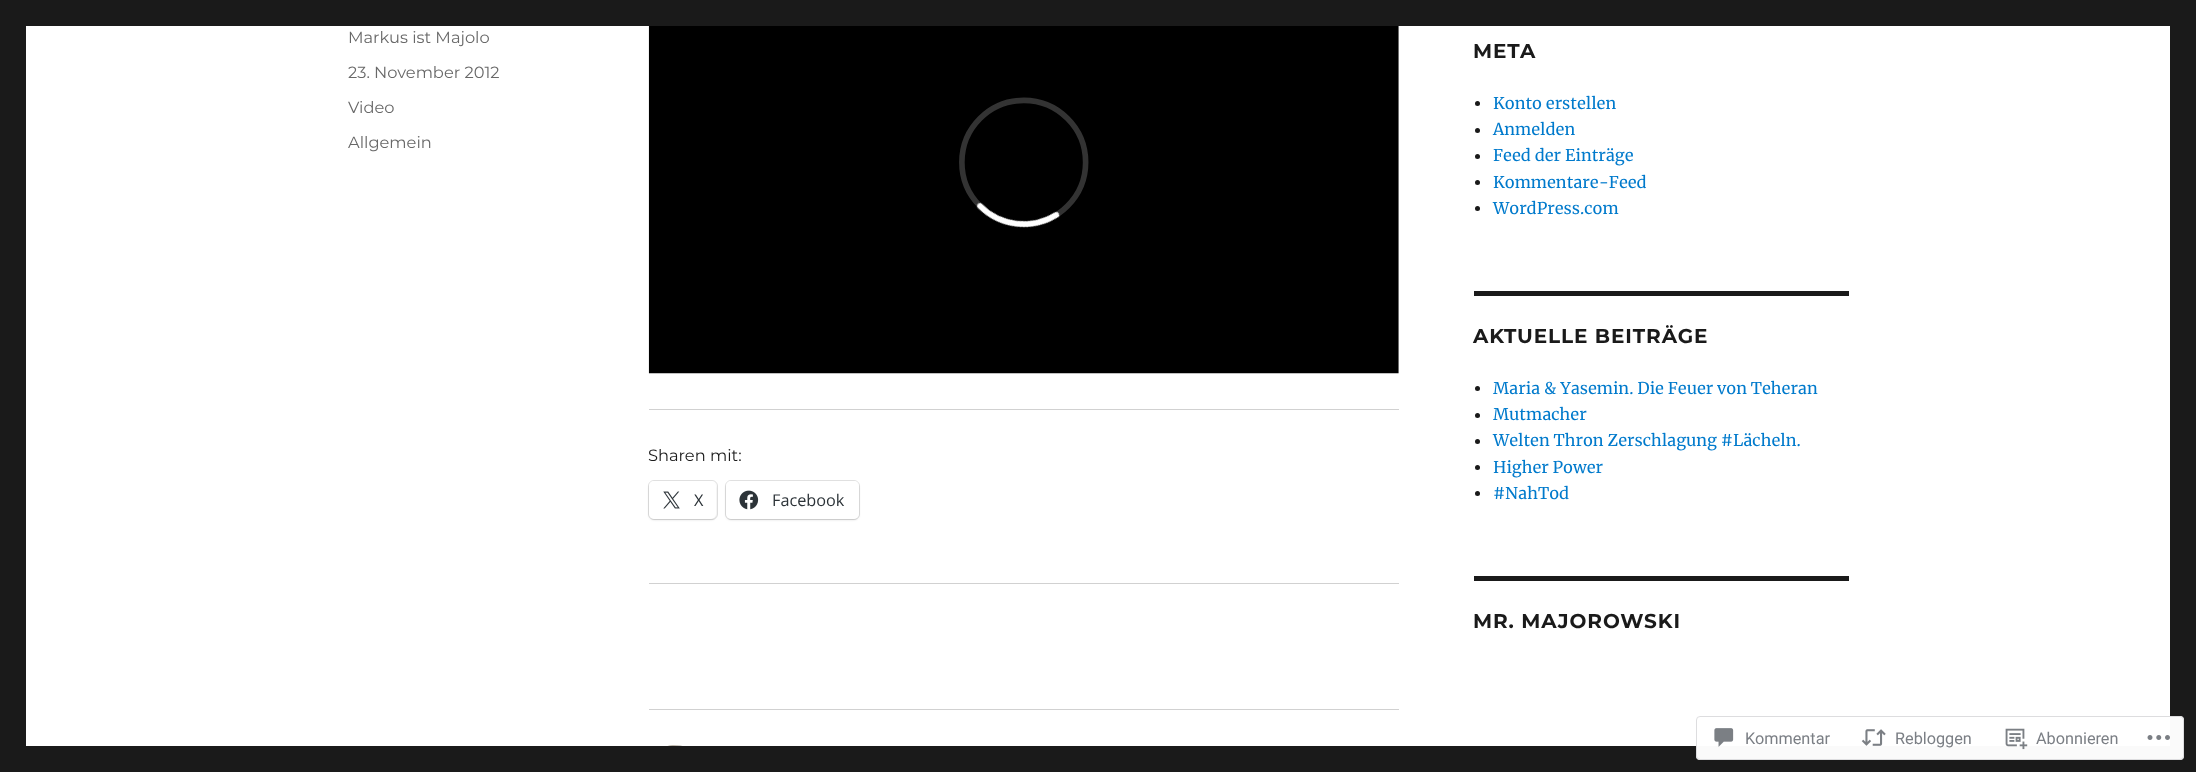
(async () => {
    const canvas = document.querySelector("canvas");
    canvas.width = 2196;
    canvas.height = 772;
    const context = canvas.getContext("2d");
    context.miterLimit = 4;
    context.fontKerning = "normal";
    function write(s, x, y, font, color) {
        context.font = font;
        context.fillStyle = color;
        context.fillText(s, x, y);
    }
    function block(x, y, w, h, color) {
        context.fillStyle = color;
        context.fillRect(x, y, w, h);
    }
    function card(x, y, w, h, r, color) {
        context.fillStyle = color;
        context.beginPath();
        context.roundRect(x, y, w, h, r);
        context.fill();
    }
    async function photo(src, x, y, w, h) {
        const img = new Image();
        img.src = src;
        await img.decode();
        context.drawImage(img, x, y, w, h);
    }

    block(0, 0, 2196, 772, "rgb(26, 26, 26)");
    block(26, 26, 2144, 720, "rgb(255, 255, 255)");
    write("Markus ist Majolo", 348, 43, "100 16.25px 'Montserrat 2'", "rgb(104, 104, 104)");
    write("23. November 2012", 348, 78, "100 16.25px 'Montserrat 2'", "rgb(104, 104, 104)");
    write("Video", 348, 113, "100 16.25px 'Montserrat 2'", "rgb(104, 104, 104)");
    write("Allgemein", 348, 148, "100 16.25px 'Montserrat 2'", "rgb(104, 104, 104)");
    await photo("media/1.png", 648, 26, 751, 348);
    block(649, 409, 750, 1, "rgb(209, 209, 209)");
    write("Sharen mit:", 648, 461, "100 16.25px 'Montserrat 2'", "rgb(26, 26, 26)");
    context.beginPath();
    context.roundRect(648.5, 480.5, 69, 39, 5.5);
    context.strokeStyle = "rgb(224, 224, 224)";
    context.stroke();
    context.fillStyle = "rgba(0, 0, 0, 0.12)";
    context.filter = "blur(1px)";
    context.beginPath();
    context.roundRect(649, 483, 67, 37, 5);
    context.fill();
    context.filter = "none";
    card(649, 481, 67, 38, 5, "rgb(255, 255, 255)");
    await photo("media/2.png", 663, 491, 17, 18);
    write("X", 694, 506, "16.25px Open Sans", "rgb(44, 51, 56)");
    context.beginPath();
    context.roundRect(725.5, 480.5, 134, 39, 5.5);
    context.stroke();
    context.fillStyle = "rgba(0, 0, 0, 0.12)";
    context.filter = "blur(1px)";
    context.beginPath();
    context.roundRect(726, 483, 133, 37, 5);
    context.fill();
    context.filter = "none";
    card(726, 481, 133, 38, 5, "rgb(255, 255, 255)");
    await photo("media/3.png", 739, 490, 20, 20);
    write("Facebook", 772, 506, "16.25px Open Sans", "rgb(44, 51, 56)");
    block(649, 583, 750, 1, "rgb(209, 209, 209)");
    block(649, 709, 750, 1, "rgb(209, 209, 209)");
    await photo("media/4.png", 667, 745, 16, 1);
    context.letterSpacing = "0.9px";
    write("META", 1473, 58, "100 20px Montserrat", "rgb(26, 26, 26)");
    context.beginPath();
    context.arc(1477.5, 103.5, 2.5, 0, Math.PI * 2);
    context.fill();
    context.letterSpacing = "0px";
    write("Konto erstellen", 1493, 109, "16.25px Merriweather", "rgb(0, 122, 204)");
    context.fillStyle = "rgb(26, 26, 26)";
    context.beginPath();
    context.arc(1477.5, 130.5, 2.5, 0, Math.PI * 2);
    context.fill();
    write("Anmelden", 1493, 135, "16.25px Merriweather", "rgb(0, 122, 204)");
    context.fillStyle = "rgb(26, 26, 26)";
    context.beginPath();
    context.arc(1477.5, 156.5, 2.5, 0, Math.PI * 2);
    context.fill();
    write("Feed der Einträge", 1493, 161, "16.25px Merriweather", "rgb(0, 122, 204)");
    context.fillStyle = "rgb(26, 26, 26)";
    context.beginPath();
    context.arc(1477.5, 182.5, 2.5, 0, Math.PI * 2);
    context.fill();
    write("Kommentare-Feed", 1493, 188, "16.25px Merriweather", "rgb(0, 122, 204)");
    context.fillStyle = "rgb(26, 26, 26)";
    context.beginPath();
    context.arc(1477.5, 208.5, 2.5, 0, Math.PI * 2);
    context.fill();
    write("WordPress.com", 1493, 214, "16.25px Merriweather", "rgb(0, 122, 204)");
    block(1474, 291, 375, 5, "rgb(26, 26, 26)");
    context.letterSpacing = "0.9px";
    write("AKTUELLE BEITRÄGE", 1473, 343, "100 20px Montserrat", "rgb(26, 26, 26)");
    context.beginPath();
    context.arc(1477.5, 388.5, 2.5, 0, Math.PI * 2);
    context.fill();
    context.letterSpacing = "0px";
    write("Maria & Yasemin. Die Feuer von Teheran", 1493, 394, "16.25px Merriweather", "rgb(0, 122, 204)");
    context.fillStyle = "rgb(26, 26, 26)";
    context.beginPath();
    context.arc(1477.5, 415.5, 2.5, 0, Math.PI * 2);
    context.fill();
    write("Mutmacher", 1493, 420, "16.25px Merriweather", "rgb(0, 122, 204)");
    context.fillStyle = "rgb(26, 26, 26)";
    context.beginPath();
    context.arc(1477.5, 441.5, 2.5, 0, Math.PI * 2);
    context.fill();
    write("Welten Thron Zerschlagung #Lächeln.", 1493, 446, "16.25px Merriweather", "rgb(0, 122, 204)");
    context.fillStyle = "rgb(26, 26, 26)";
    context.beginPath();
    context.arc(1477.5, 467.5, 2.5, 0, Math.PI * 2);
    context.fill();
    write("Higher Power", 1493, 473, "16.25px Merriweather", "rgb(0, 122, 204)");
    context.fillStyle = "rgb(26, 26, 26)";
    context.beginPath();
    context.arc(1477.5, 493.5, 2.5, 0, Math.PI * 2);
    context.fill();
    write("#NahTod", 1493, 499, "16.25px Merriweather", "rgb(0, 122, 204)");
    block(1474, 576, 375, 5, "rgb(26, 26, 26)");
    context.letterSpacing = "0.9px";
    write("MR. MAJOROWSKI", 1473, 628, "100 20px Montserrat", "rgb(26, 26, 26)");
    card(1696, 716, 488, 44, 4, "rgba(255, 255, 255, 0.98)");
    context.beginPath();
    context.roundRect(1696.5, 716.5, 487, 43, 3.5);
    context.strokeStyle = "rgba(220, 220, 222, 0.98)";
    context.stroke();
    await photo("media/5.png", 1714, 728, 20, 19);
    context.letterSpacing = "0px";
    write("Kommentar", 1745, 744, "16.25px Roboto", "rgb(123, 127, 133)");
    await photo("media/6.png", 1861, 729, 25, 17);
    write("Rebloggen", 1895, 744, "16.25px Roboto", "rgb(123, 127, 133)");
    await photo("media/7.png", 2005, 728, 23, 22);
    write("Abonnieren", 2036, 744, "16.25px Roboto", "rgb(123, 127, 133)");
    await photo("media/8.png", 2147, 735, 23, 5);
})();
